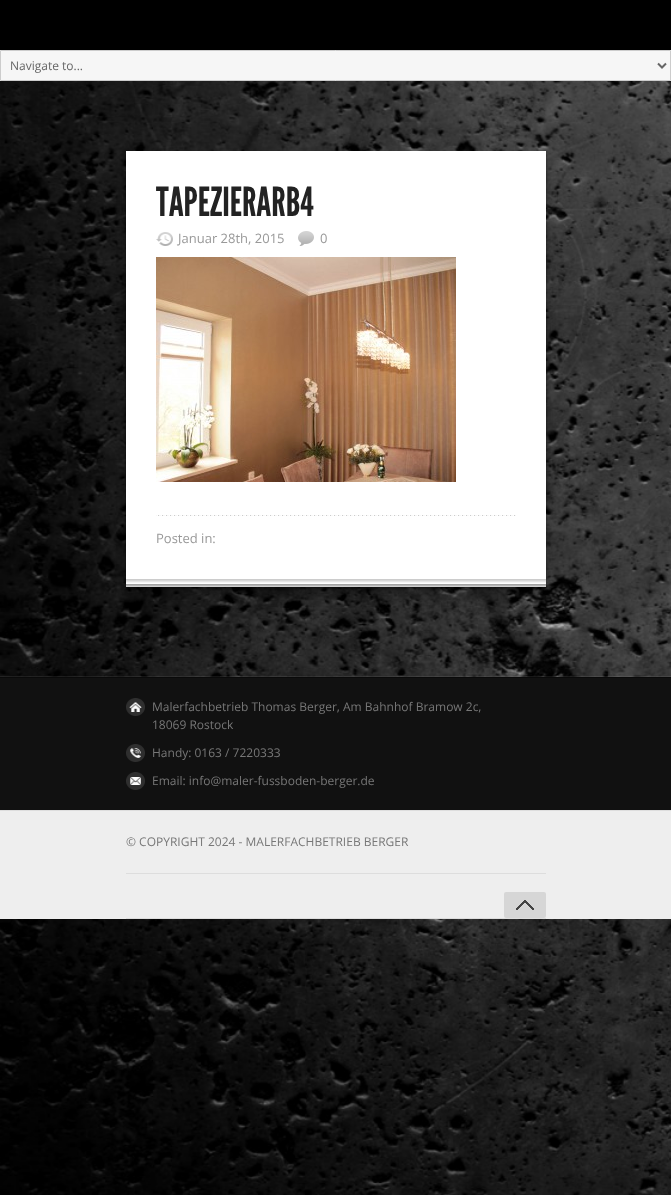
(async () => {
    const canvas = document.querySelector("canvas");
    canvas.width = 671;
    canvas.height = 1195;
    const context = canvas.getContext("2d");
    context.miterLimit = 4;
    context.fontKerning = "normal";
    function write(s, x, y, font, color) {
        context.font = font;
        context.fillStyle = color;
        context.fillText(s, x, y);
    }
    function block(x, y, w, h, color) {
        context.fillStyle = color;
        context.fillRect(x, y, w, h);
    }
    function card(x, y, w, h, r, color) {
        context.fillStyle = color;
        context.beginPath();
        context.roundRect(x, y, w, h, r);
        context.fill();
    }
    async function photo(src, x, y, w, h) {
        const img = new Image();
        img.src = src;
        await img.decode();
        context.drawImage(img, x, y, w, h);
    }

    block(0, 0, 671, 1195, "rgb(255, 255, 255)");
    block(0, 0, 671, 50, "rgb(0, 0, 0)");
    context.fillStyle = "rgb(246, 246, 246)";
    context.beginPath();
    context.rect(0.5, 50.5, 670, 30);
    context.fill();
    context.strokeStyle = "rgb(204, 204, 204)";
    context.stroke();
    context.beginPath();
    context.moveTo(658, 63.5);
    context.lineTo(662, 67.5);
    context.lineTo(666, 63.5);
    context.strokeStyle = "rgb(102, 102, 102)";
    context.lineWidth = 2;
    context.stroke();
    write("Navigate to...", 10, 70, "12px Open Sans", "rgb(102, 102, 102)");
    await photo("media/10.png", 0, 81, 671, 1114);
    context.fillStyle = "rgba(0, 0, 0, 0.4)";
    context.filter = "blur(1px)";
    context.beginPath();
    context.rect(126, 153, 420, 436);
    context.fill();
    context.filter = "none";
    context.fillStyle = "rgba(0, 0, 0, 0.3)";
    context.filter = "blur(5px)";
    context.beginPath();
    context.rect(126, 161, 420, 436);
    context.fill();
    context.filter = "none";
    block(126, 151, 420, 436, "rgb(255, 255, 255)");
    await photo("media/1.png", 126, 579, 420, 8);
    write("TAPEZIERARB4", 156, 216, "40px League Gothic", "rgb(34, 34, 34)");
    await photo("media/2.png", 156, 232, 17, 14);
    write("Januar 28th, 2015", 178, 243, "13px Open Sans", "rgb(153, 153, 153)");
    await photo("media/3.png", 298, 231, 16, 15);
    write("0", 320, 243, "13px Open Sans", "rgb(153, 153, 153)");
    await photo("media/4.png", 156, 257, 300, 225);
    await photo("media/5.png", 156, 515, 360, 1);
    write("Posted in:", 156, 543, "13px Open Sans", "rgb(153, 153, 153)");
    block(0, 676, 671, 1, "rgba(255, 255, 255, 0.08)");
    block(0, 678, 671, 132, "rgb(17, 17, 17)");
    block(0, 677, 671, 1, "rgb(10, 10, 10)");
    await photo("media/6.png", 126, 698, 19, 18);
    write("Malerfachbetrieb Thomas Berger, Am Bahnhof Bramow 2c,", 152, 711, "12px Open Sans", "rgb(119, 119, 119)");
    write("18069 Rostock", 152, 729, "12px Open Sans", "rgb(119, 119, 119)");
    await photo("media/7.png", 126, 744, 19, 18);
    write("Handy: 0163 / 7220333", 152, 757, "12px Open Sans", "rgb(119, 119, 119)");
    await photo("media/8.png", 126, 772, 19, 18);
    write("Email: info@maler-fussboden-berger.de", 152, 785, "12px Open Sans", "rgb(119, 119, 119)");
    block(0, 811, 671, 108, "rgb(238, 238, 238)");
    block(0, 810, 671, 1, "rgb(221, 221, 221)");
    block(126, 873, 420, 1, "rgb(221, 221, 221)");
    write("© COPYRIGHT 2024 - MALERFACHBETRIEB BERGER", 126, 846, "12px Open Sans", "rgb(119, 119, 119)");
    block(126, 918, 420, 1, "rgb(221, 221, 221)");
    card(504, 892, 42, 26, 2, "rgb(214, 214, 214)");
    await photo("media/9.png", 516, 900, 18, 10);
})();
